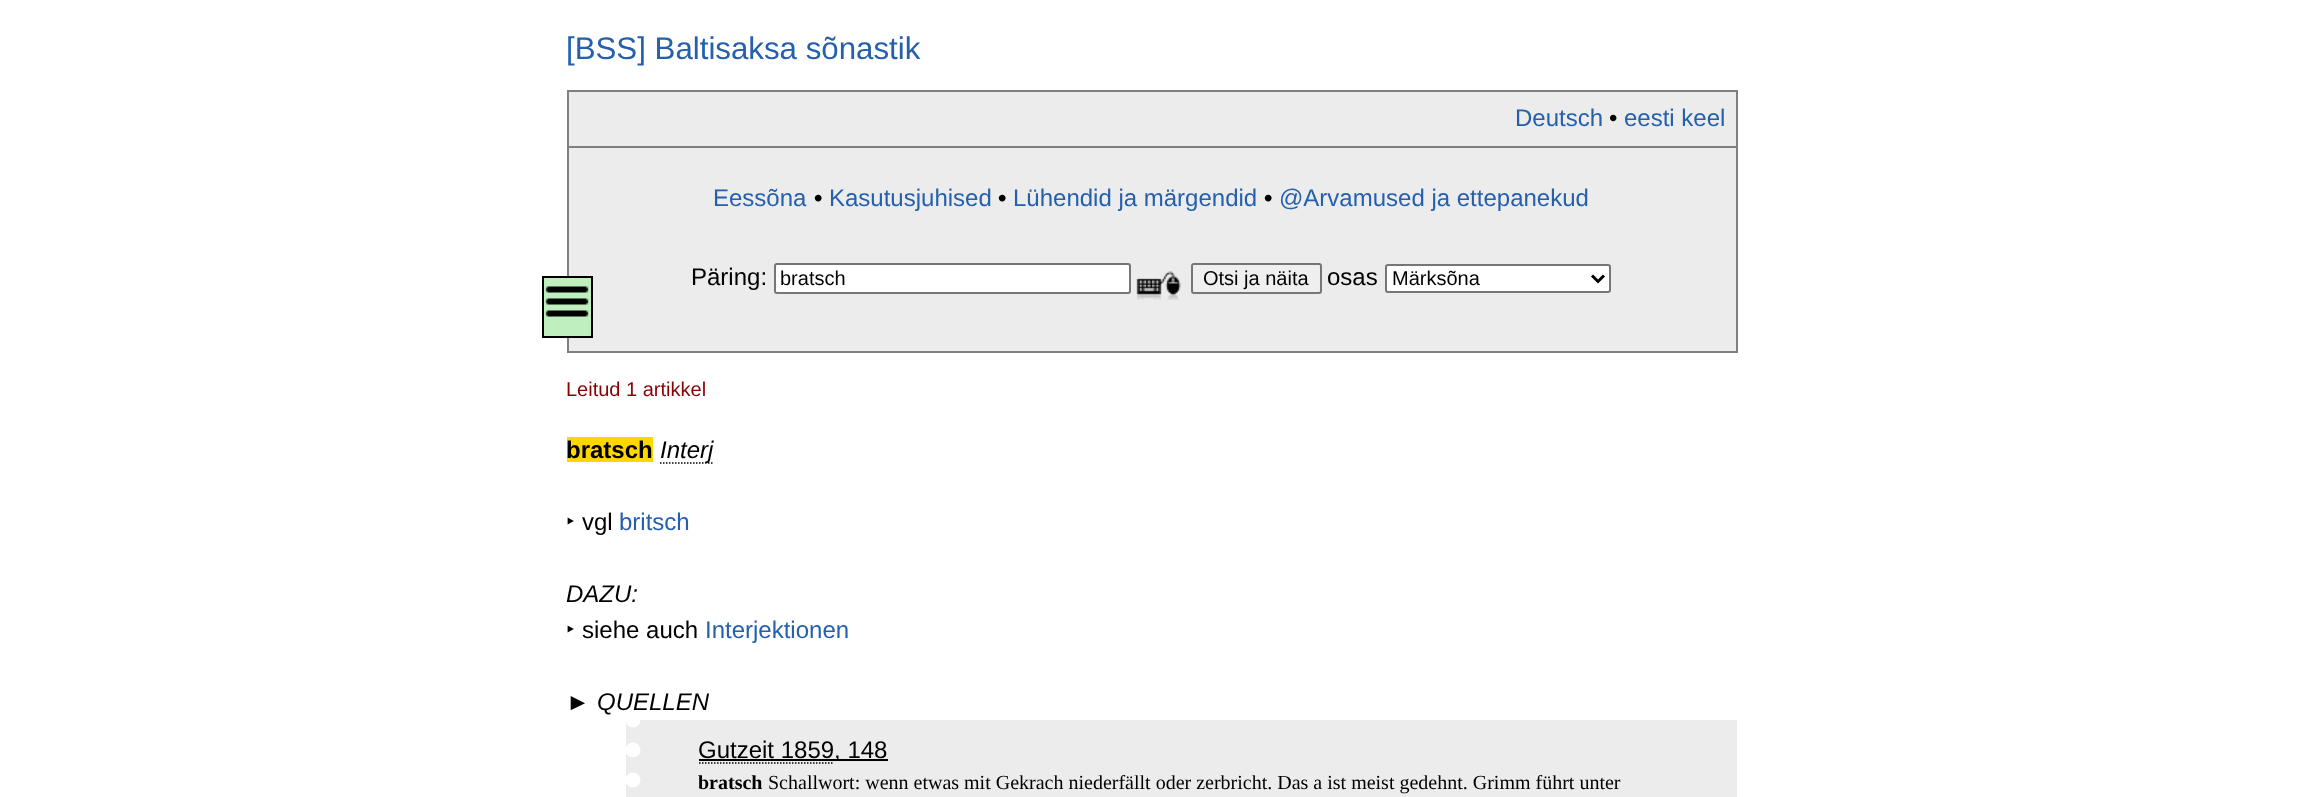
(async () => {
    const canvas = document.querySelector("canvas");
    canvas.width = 2317;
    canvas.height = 797;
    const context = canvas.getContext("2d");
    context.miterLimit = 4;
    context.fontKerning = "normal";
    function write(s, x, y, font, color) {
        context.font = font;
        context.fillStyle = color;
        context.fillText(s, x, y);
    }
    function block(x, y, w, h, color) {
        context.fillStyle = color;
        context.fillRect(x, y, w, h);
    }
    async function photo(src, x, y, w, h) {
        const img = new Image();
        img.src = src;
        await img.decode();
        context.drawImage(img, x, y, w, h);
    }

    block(0, 0, 2317, 797, "rgb(255, 255, 255)");
    write("[BSS] Baltisaksa sõnastik", 566, 59, "31.25px Liberation Sans", "rgb(36, 96, 173)");
    block(569, 92, 1167, 259, "rgb(236, 236, 236)");
    block(567, 90, 1170, 2, "rgb(128, 128, 128)");
    block(1736, 90, 2, 263, "rgb(128, 128, 128)");
    block(567, 351, 1170, 2, "rgb(128, 128, 128)");
    block(567, 90, 2, 263, "rgb(128, 128, 128)");
    write("Deutsch", 1515, 126, "24px Liberation Sans", "rgb(36, 96, 173)");
    write("•", 1609, 126, "24px Liberation Sans", "rgb(0, 0, 0)");
    write("eesti keel", 1624, 126, "24px Liberation Sans", "rgb(36, 96, 173)");
    block(567, 146, 1170, 2, "rgb(128, 128, 128)");
    write("Eessõna", 713, 206, "24px Liberation Sans", "rgb(36, 96, 173)");
    write("•", 814, 206, "bold 24px Liberation Sans", "rgb(0, 0, 0)");
    write("Kasutusjuhised", 829, 206, "24px Liberation Sans", "rgb(36, 96, 173)");
    write("•", 998, 206, "bold 24px Liberation Sans", "rgb(0, 0, 0)");
    write("Lühendid ja märgendid", 1013, 206, "24px Liberation Sans", "rgb(36, 96, 173)");
    write("•", 1264, 206, "bold 24px Liberation Sans", "rgb(0, 0, 0)");
    write("@Arvamused ja ettepanekud", 1279, 206, "24px Liberation Sans", "rgb(36, 96, 173)");
    context.fillStyle = "rgb(191, 238, 191)";
    context.beginPath();
    context.rect(543, 277, 49, 60);
    context.fill();
    context.strokeStyle = "rgb(0, 0, 0)";
    context.lineWidth = 2;
    context.stroke();
    await photo("media/1.png", 545, 286, 44, 31);
    write("Päring:", 691, 285, "24px Liberation Sans", "rgb(0, 0, 0)");
    context.fillStyle = "rgb(255, 255, 255)";
    context.beginPath();
    context.roundRect(775, 264, 355, 29, 2);
    context.fill();
    context.strokeStyle = "rgb(118, 118, 118)";
    context.stroke();
    write("bratsch", 780, 285, "20px Liberation Sans", "rgb(0, 0, 0)");
    await photo("media/2.png", 1136, 271, 45, 29);
    context.fillStyle = "rgb(239, 239, 239)";
    context.beginPath();
    context.roundRect(1192, 264, 129, 29, 2);
    context.fill();
    context.stroke();
    write("Otsi ja näita", 1203, 285, "20px Liberation Sans", "rgb(0, 0, 0)");
    write("osas", 1327, 285, "24px Liberation Sans", "rgb(0, 0, 0)");
    context.fillStyle = "rgb(255, 255, 255)";
    context.beginPath();
    context.roundRect(1386, 265, 224, 27, 2);
    context.fill();
    context.stroke();
    context.beginPath();
    context.moveTo(1592, 275.5);
    context.lineTo(1598, 281.5);
    context.lineTo(1604, 275.5);
    context.strokeStyle = "rgb(0, 0, 0)";
    context.lineWidth = 3;
    context.stroke();
    write("Märksõna", 1392, 285, "20px Liberation Sans", "rgb(0, 0, 0)");
    write("Leitud 1 artikkel", 566, 396, "20px Liberation Sans", "rgb(139, 0, 0)");
    block(567, 437, 86, 25, "rgb(255, 215, 0)");
    write("bratsch", 566, 458, "bold 24px Liberation Sans", "rgb(0, 0, 0)");
    context.beginPath();
    context.moveTo(660, 463);
    context.lineTo(712.5, 463);
    context.lineWidth = 1.5;
    context.setLineDash([1.5, 1.5]);
    context.stroke();
    write("Interj", 660, 458, "italic 24px Liberation Sans", "rgb(0, 0, 0)");
    write("‣", 566, 530, "24px Noto Sans", "rgb(0, 0, 0)");
    write("vgl", 582, 530, "24px Liberation Sans", "rgb(0, 0, 0)");
    write("britsch", 619, 530, "24px Liberation Sans", "rgb(36, 96, 173)");
    write("DAZU:", 566, 602, "italic 24px Liberation Sans", "rgb(0, 0, 0)");
    write("‣", 566, 638, "24px Noto Sans", "rgb(0, 0, 0)");
    write("siehe auch", 582, 638, "24px Liberation Sans", "rgb(0, 0, 0)");
    write("Interjektionen", 705, 638, "24px Liberation Sans", "rgb(36, 96, 173)");
    write("►", 566, 710, "24px Liberation Sans", "rgb(0, 0, 0)");
    block(626, 720, 1111, 77, "rgb(236, 236, 236)");
    context.beginPath();
    context.moveTo(633, 720);
    context.lineTo(633, 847.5);
    context.strokeStyle = "rgb(255, 255, 255)";
    context.lineWidth = 15;
    context.lineCap = "round";
    context.setLineDash([0, 30]);
    context.stroke();
    write("QUELLEN", 597, 710, "italic 24px Liberation Sans", "rgb(0, 0, 0)");
    block(699, 759, 189, 2, "rgb(0, 0, 0)");
    write("Gutzeit 1859, 148", 698, 758, "24px Liberation Sans", "rgb(0, 0, 0)");
    context.beginPath();
    context.moveTo(699, 763);
    context.lineTo(834, 763);
    context.strokeStyle = "rgb(0, 0, 0)";
    context.lineWidth = 1.5;
    context.lineCap = "butt";
    context.setLineDash([1.5, 1.5]);
    context.stroke();
    write("bratsch", 698, 789, "bold 20px Liberation Serif", "rgb(0, 0, 0)");
    write("Schallwort: wenn etwas mit Gekrach niederfällt oder zerbricht. Das a ist meist gedehnt. Grimm führt unter", 768, 789, "20px Liberation Serif", "rgb(0, 0, 0)");
})();
